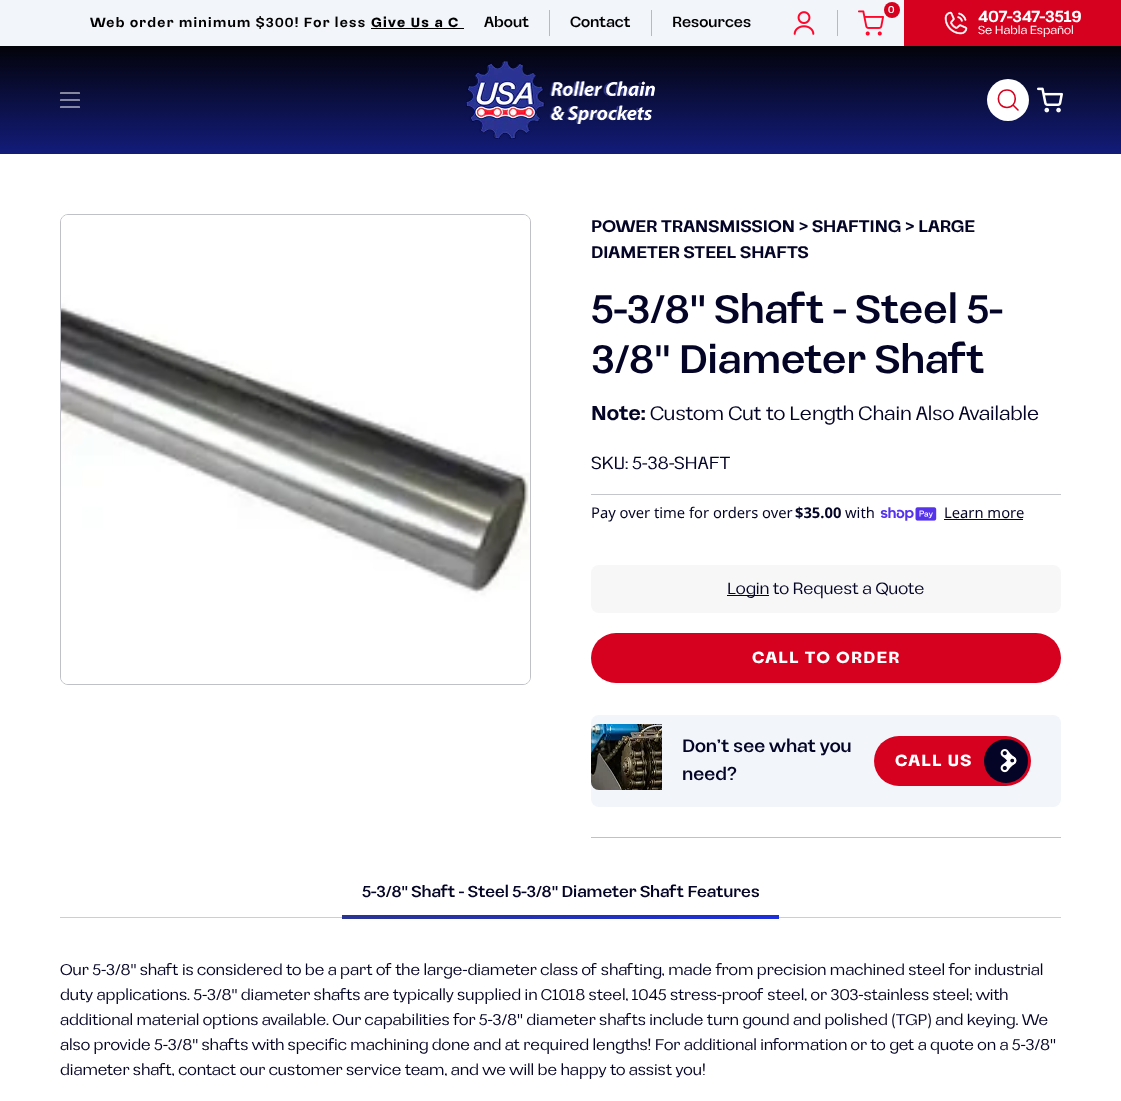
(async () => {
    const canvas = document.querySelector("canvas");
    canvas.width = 1121;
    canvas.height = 1101;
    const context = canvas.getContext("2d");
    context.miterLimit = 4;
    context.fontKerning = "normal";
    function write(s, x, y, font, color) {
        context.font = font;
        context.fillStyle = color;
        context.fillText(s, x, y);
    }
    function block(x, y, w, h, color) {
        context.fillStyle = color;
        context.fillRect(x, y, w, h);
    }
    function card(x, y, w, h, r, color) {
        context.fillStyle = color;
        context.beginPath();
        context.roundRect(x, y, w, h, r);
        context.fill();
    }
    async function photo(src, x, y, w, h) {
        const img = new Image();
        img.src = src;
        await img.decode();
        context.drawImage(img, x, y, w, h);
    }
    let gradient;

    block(0, 0, 1121, 1101, "rgb(255, 255, 255)");
    block(0, 0, 904, 46, "rgb(242, 245, 250)");
    context.letterSpacing = "1.3px";
    write("Web order minimum $300! For less", 90, 27, "bold 13.2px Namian", "rgb(0, 0, 0)");
    write("Give Us a C", 371, 27, "800 13.2px Namian", "rgb(0, 0, 0)");
    block(371, 28, 93, 1, "rgb(0, 0, 0)");
    block(837, 10, 1, 26, "rgb(183, 185, 197)");
    await photo("media/1.png", 793, 11, 22, 24);
    await photo("media/2.png", 858, 10, 26, 26);
    context.fillStyle = "rgb(214, 0, 31)";
    context.beginPath();
    context.arc(892, 10, 8, 0, Math.PI * 2);
    context.fill();
    context.letterSpacing = "0px";
    write("0", 888, 13, "600 10px Namian", "rgb(255, 255, 255)");
    block(549, 10, 1, 26, "rgb(183, 185, 197)");
    write("About", 484, 27, "600 15px Namian", "rgb(0, 0, 0)");
    block(651, 10, 1, 26, "rgb(183, 185, 197)");
    write("Contact", 570, 27, "600 15px Namian", "rgb(0, 0, 0)");
    write("Resources", 672, 27, "600 15px Namian", "rgb(0, 0, 0)");
    block(904, 0, 217, 46, "rgb(214, 0, 31)");
    await photo("media/3.png", 944, 11, 24, 24);
    write("407-347-3519", 978, 22, "bold 16px Namian", "rgb(255, 255, 255)");
    write("Se Habla Español", 978, 34, "12px Namian", "rgb(255, 255, 255)");
    gradient = context.createLinearGradient(561, 46, 561, 220);
    gradient.addColorStop(0, "rgb(3, 3, 10)");
    gradient.addColorStop(1, "rgb(28, 43, 190)");
    context.fillStyle = gradient;
    context.fillRect(0, 46, 1121, 108);
    context.beginPath();
    context.moveTo(60.5, 100);
    context.lineTo(79.5, 100);
    context.moveTo(60.5, 93);
    context.lineTo(79.5, 93);
    context.moveTo(60.5, 107);
    context.lineTo(79.5, 107);
    context.strokeStyle = "rgb(255, 255, 255)";
    context.lineWidth = 1.2;
    context.lineCap = "round";
    context.lineJoin = "round";
    context.stroke();
    await photo("media/4.png", 466, 61, 185, 78);
    await photo("media/5.png", 466, 61, 189, 78);
    context.fillStyle = "rgb(255, 255, 255)";
    context.beginPath();
    context.arc(1008, 100, 21, 0, Math.PI * 2);
    context.fill();
    context.beginPath();
    context.moveTo(1007, 107.5);
    context.bezierCurveTo(1018, 107.5, 1018, 90, 1007, 90);
    context.bezierCurveTo(995.5, 90, 995.5, 107.5, 1007, 107.5);
    context.closePath();
    context.moveTo(1013, 105);
    context.lineTo(1018, 110);
    context.strokeStyle = "rgb(214, 0, 31)";
    context.lineWidth = 1.6;
    context.stroke();
    await photo("media/6.png", 1037, 87, 26, 26);
    context.beginPath();
    context.roundRect(60.5, 214.5, 470, 470, 7.5);
    context.strokeStyle = "rgb(192, 192, 201)";
    context.lineWidth = 1;
    context.lineJoin = "miter";
    context.stroke();
    await photo("media/7.png", 61, 215, 469, 469);
    write("POWER TRANSMISSION > SHAFTING > LARGE", 591, 232, "bold 16.8px Namian", "rgb(4, 4, 38)");
    write("DIAMETER STEEL SHAFTS", 591, 258, "bold 16.8px Namian", "rgb(4, 4, 38)");
    write("5-3/8\" Shaft - Steel 5-", 591, 323, "600 40px Namian", "rgb(4, 4, 38)");
    write("3/8\" Diameter Shaft", 591, 373, "600 40px Namian", "rgb(4, 4, 38)");
    write("Note:", 591, 420, "bold 20px Namian", "rgb(4, 4, 38)");
    write("Custom Cut to Length Chain Also Available", 650, 420, "20px Namian", "rgb(4, 4, 38)");
    write("SKU: 5-38-SHAFT", 591, 469, "18px Namian", "rgb(4, 4, 38)");
    block(591, 494, 470, 1, "rgb(197, 197, 205)");
    write("Pay over time for orders over", 591, 518, "14.75px Noto Sans", "rgb(4, 4, 38)");
    write("$35.00", 795, 518, "bold 14.75px Noto Sans", "rgb(4, 4, 38)");
    write("with", 845, 518, "14.75px Noto Sans", "rgb(4, 4, 38)");
    await photo("media/8.png", 880, 507, 57, 14);
    write("Learn more", 944, 518, "14.75px Noto Sans", "rgb(4, 4, 38)");
    block(944, 519, 79, 1, "rgb(4, 4, 38)");
    card(591, 565, 470, 48, 8, "rgb(247, 247, 247)");
    block(727, 595, 42, 1, "rgb(4, 4, 38)");
    write("Login to Request a Quote", 727, 594, "16.8px Namian", "rgb(4, 4, 38)");
    card(591, 633, 470, 50, 25, "rgb(214, 0, 31)");
    context.letterSpacing = "1.25px";
    write("CALL TO ORDER", 752, 663, "800 16px Namian", "rgb(255, 255, 255)");
    card(591, 715, 470, 92, 8, "rgb(242, 245, 250)");
    await photo("media/9.png", 591, 724, 71, 66);
    context.letterSpacing = "0px";
    write("Don’t see what you", 682, 752, "600 18px Namian", "rgb(4, 4, 38)");
    write("need?", 682, 780, "600 18px Namian", "rgb(4, 4, 38)");
    card(874, 736, 157, 50, 25, "rgb(214, 0, 31)");
    context.fillStyle = "rgb(4, 4, 38)";
    context.beginPath();
    context.arc(1006, 761, 22, 0, Math.PI * 2);
    context.fill();
    context.letterSpacing = "1.25px";
    write("CALL US", 895, 766, "800 16px Namian", "rgb(255, 255, 255)");
    await photo("media/10.png", 1000, 749, 17, 24);
    block(591, 837, 470, 1, "rgb(192, 192, 201)");
    block(60, 917, 1001, 1, "rgb(205, 205, 212)");
    context.letterSpacing = "0px";
    write("5-3/8\" Shaft - Steel 5-3/8\" Diameter Shaft Features", 362, 897, "600 16px Namian", "rgb(4, 4, 38)");
    gradient = context.createLinearGradient(342, 917, 779, 917);
    gradient.addColorStop(0, "rgb(42, 52, 146)");
    gradient.addColorStop(1, "rgb(28, 47, 220)");
    context.fillStyle = gradient;
    context.fillRect(342, 915, 437, 4);
    write("Our 5-3/8\" shaft is considered to be a part of the large-diameter class of shafting, made from precision machined steel for industrial", 60, 975, "16px Namian", "rgb(4, 4, 38)");
    write("duty applications. 5-3/8\" diameter shafts are typically supplied in C1018 steel, 1045 stress-proof steel, or 303-stainless steel; with", 60, 1000, "16px Namian", "rgb(4, 4, 38)");
    write("additional material options available. Our capabilities for 5-3/8\" diameter shafts include turn gound and polished (TGP) and keying. We", 60, 1025, "16px Namian", "rgb(4, 4, 38)");
    write("also provide 5-3/8\" shafts with specific machining done and at required lengths! For additional information or to get a quote on a 5-3/8\"", 60, 1050, "16px Namian", "rgb(4, 4, 38)");
    write("diameter shaft, contact our customer service team, and we will be happy to assist you!", 60, 1075, "16px Namian", "rgb(4, 4, 38)");
})();
